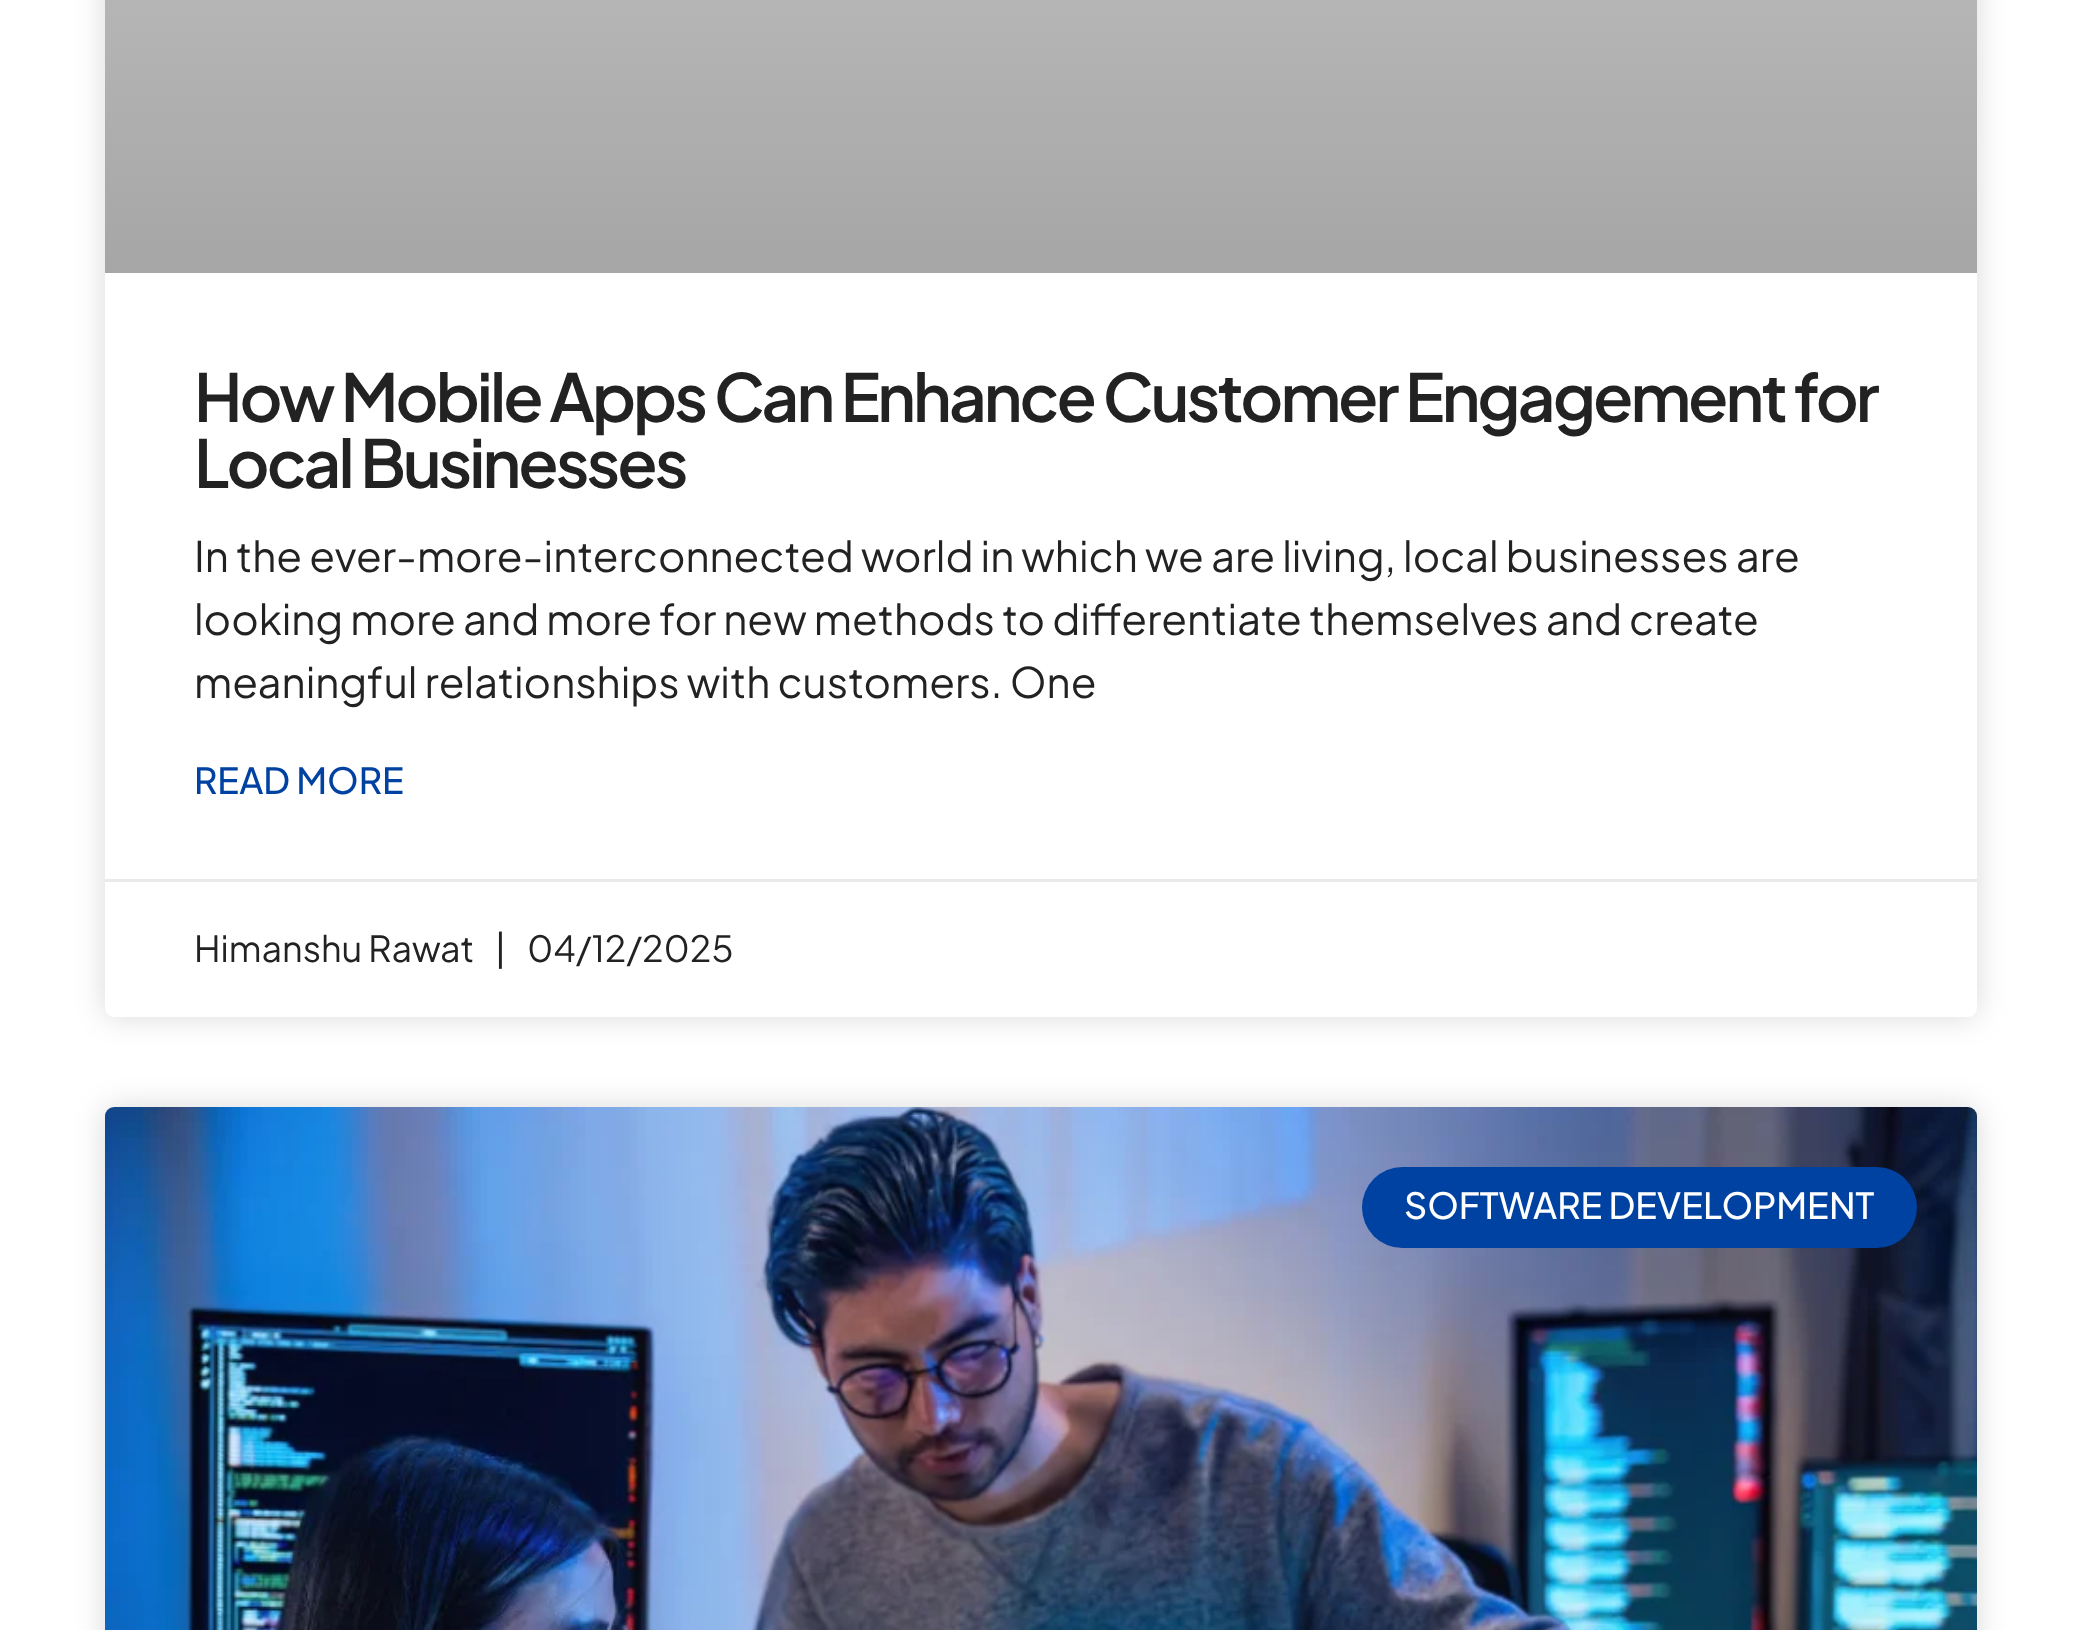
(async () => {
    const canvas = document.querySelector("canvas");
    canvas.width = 2080;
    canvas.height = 1630;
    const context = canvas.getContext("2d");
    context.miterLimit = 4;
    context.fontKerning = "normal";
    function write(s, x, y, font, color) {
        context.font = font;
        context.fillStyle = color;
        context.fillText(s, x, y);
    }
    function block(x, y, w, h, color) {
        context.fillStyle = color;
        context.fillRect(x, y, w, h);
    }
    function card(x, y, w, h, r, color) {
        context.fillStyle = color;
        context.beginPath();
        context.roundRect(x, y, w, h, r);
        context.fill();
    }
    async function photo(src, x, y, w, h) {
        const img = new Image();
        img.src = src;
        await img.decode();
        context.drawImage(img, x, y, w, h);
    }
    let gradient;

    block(0, 0, 2080, 1630, "rgb(255, 255, 255)");
    context.fillStyle = "rgba(0, 0, 0, 0.15)";
    context.filter = "blur(15px)";
    context.beginPath();
    context.roundRect(105, -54, 1872, 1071, 9);
    context.fill();
    context.filter = "none";
    card(105, -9, 1872, 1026, 9, "rgb(255, 255, 255)");
    gradient = context.createLinearGradient(1041, 273, 1041, -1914);
    gradient.addColorStop(0, "rgb(166, 166, 166)");
    gradient.addColorStop(0.75, "rgb(255, 255, 255)");
    context.fillStyle = gradient;
    context.fillRect(105, 0, 1872, 273);
    context.letterSpacing = "-3px";
    write("How Mobile Apps Can Enhance Customer Engagement for", 194, 422, "600 66px Plus Jakarta Sans", "rgb(34, 34, 34)");
    write("Local Businesses", 194, 488, "600 66px Plus Jakarta Sans", "rgb(34, 34, 34)");
    context.letterSpacing = "0px";
    write("In the ever-more-interconnected world in which we are living, local businesses are", 194, 572, "42px Plus Jakarta Sans", "rgb(34, 34, 34)");
    write("looking more and more for new methods to differentiate themselves and create", 194, 635, "42px Plus Jakarta Sans", "rgb(34, 34, 34)");
    write("meaningful relationships with customers. One", 194, 698, "42px Plus Jakarta Sans", "rgb(34, 34, 34)");
    write("READ MORE", 194, 794, "500 36px Plus Jakarta Sans", "rgb(0, 66, 161)");
    block(105, 879, 1872, 3, "rgb(234, 234, 234)");
    write("Himanshu Rawat", 194, 962, "36px Plus Jakarta Sans", "rgb(34, 34, 34)");
    write("|", 495, 962, "36px Plus Jakarta Sans", "rgb(34, 34, 34)");
    write("04/12/2025", 527, 962, "36px Plus Jakarta Sans", "rgb(34, 34, 34)");
    context.fillStyle = "rgba(0, 0, 0, 0.15)";
    context.filter = "blur(15px)";
    context.beginPath();
    context.roundRect(105, 1107, 1872, 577, 9);
    context.fill();
    context.filter = "none";
    card(105, 1107, 1872, 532, 9, "rgb(255, 255, 255)");
    await photo("media/1.png", 105, 1107, 1872, 523);
    card(1362, 1167, 555, 81, 40.5, "rgb(0, 66, 161)");
    write("SOFTWARE DEVELOPMENT", 1404, 1219, "500 36px Plus Jakarta Sans", "rgb(255, 255, 255)");
})();
